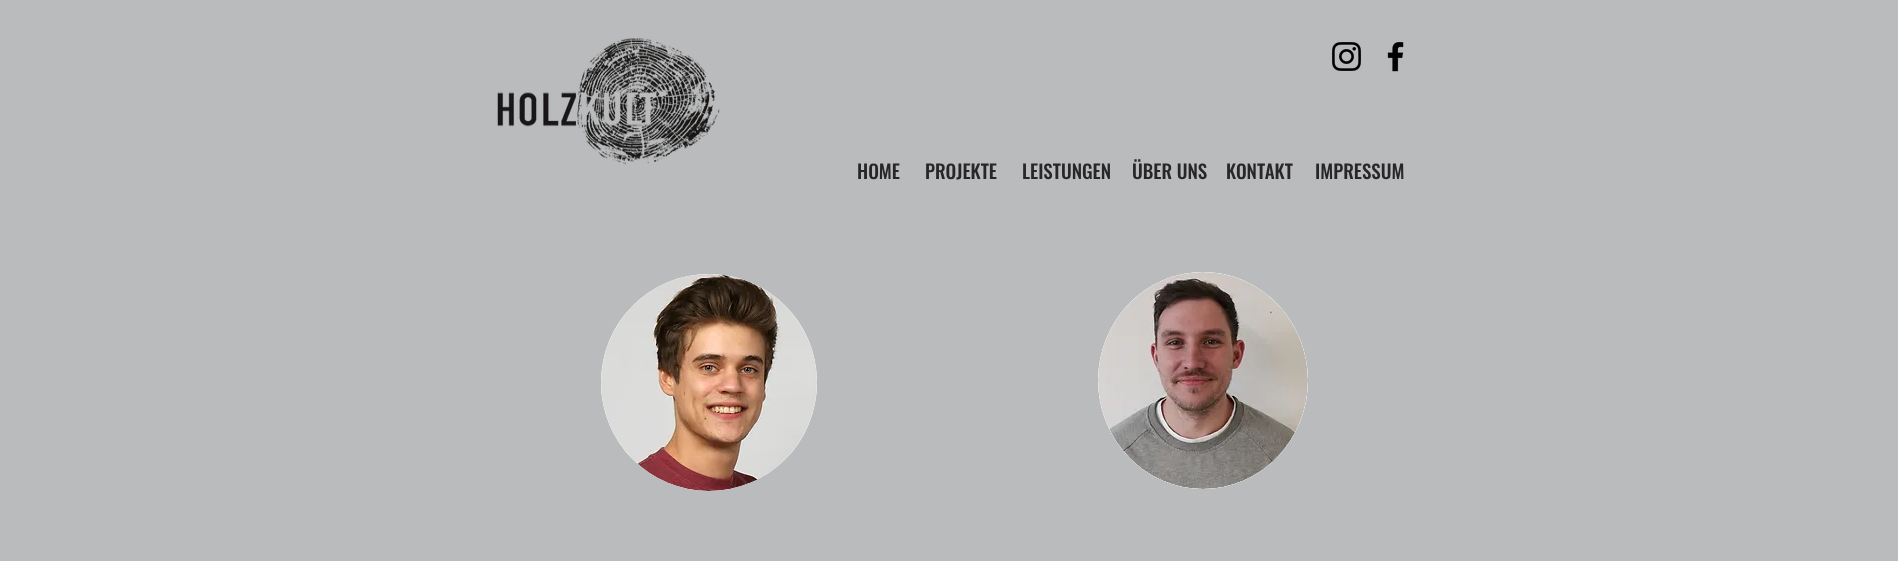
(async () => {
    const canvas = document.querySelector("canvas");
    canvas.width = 1898;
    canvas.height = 561;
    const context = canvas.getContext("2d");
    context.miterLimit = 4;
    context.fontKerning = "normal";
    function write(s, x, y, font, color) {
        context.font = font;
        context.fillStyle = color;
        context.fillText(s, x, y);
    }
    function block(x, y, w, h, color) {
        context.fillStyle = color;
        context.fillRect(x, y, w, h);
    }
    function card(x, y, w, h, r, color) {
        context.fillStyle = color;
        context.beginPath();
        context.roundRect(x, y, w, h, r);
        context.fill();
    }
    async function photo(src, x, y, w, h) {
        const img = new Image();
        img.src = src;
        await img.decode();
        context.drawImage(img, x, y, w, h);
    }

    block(0, 0, 1898, 561, "rgb(185, 187, 189)");
    await photo("media/1.png", 497, 38, 223, 127);
    await photo("media/2.png", 1332, 42, 29, 29);
    await photo("media/3.png", 1387, 42, 17, 30);
    write("HOME", 857, 179, "500 19px Oswald", "rgb(40, 38, 38)");
    write("PROJEKTE", 925, 179, "500 19px Oswald", "rgb(40, 38, 38)");
    write("LEISTUNGEN", 1022, 179, "500 19px Oswald", "rgb(40, 38, 38)");
    write("ÜBER UNS", 1132, 179, "500 19px Oswald", "rgb(40, 38, 38)");
    write("KONTAKT", 1226, 179, "500 19px Oswald", "rgb(40, 38, 38)");
    write("IMPRESSUM", 1315, 179, "500 19px Oswald", "rgb(40, 38, 38)");
    card(601, 274, 216, 217, 108, "rgb(255, 255, 255)");
    await photo("media/4.png", 601, 274, 216, 217);
    context.beginPath();
    context.ellipse(1203, 380.5, 105, 108.5, 0, 0, Math.PI * 2);
    context.fill();
    await photo("media/5.png", 1098, 272, 210, 217);
})();
